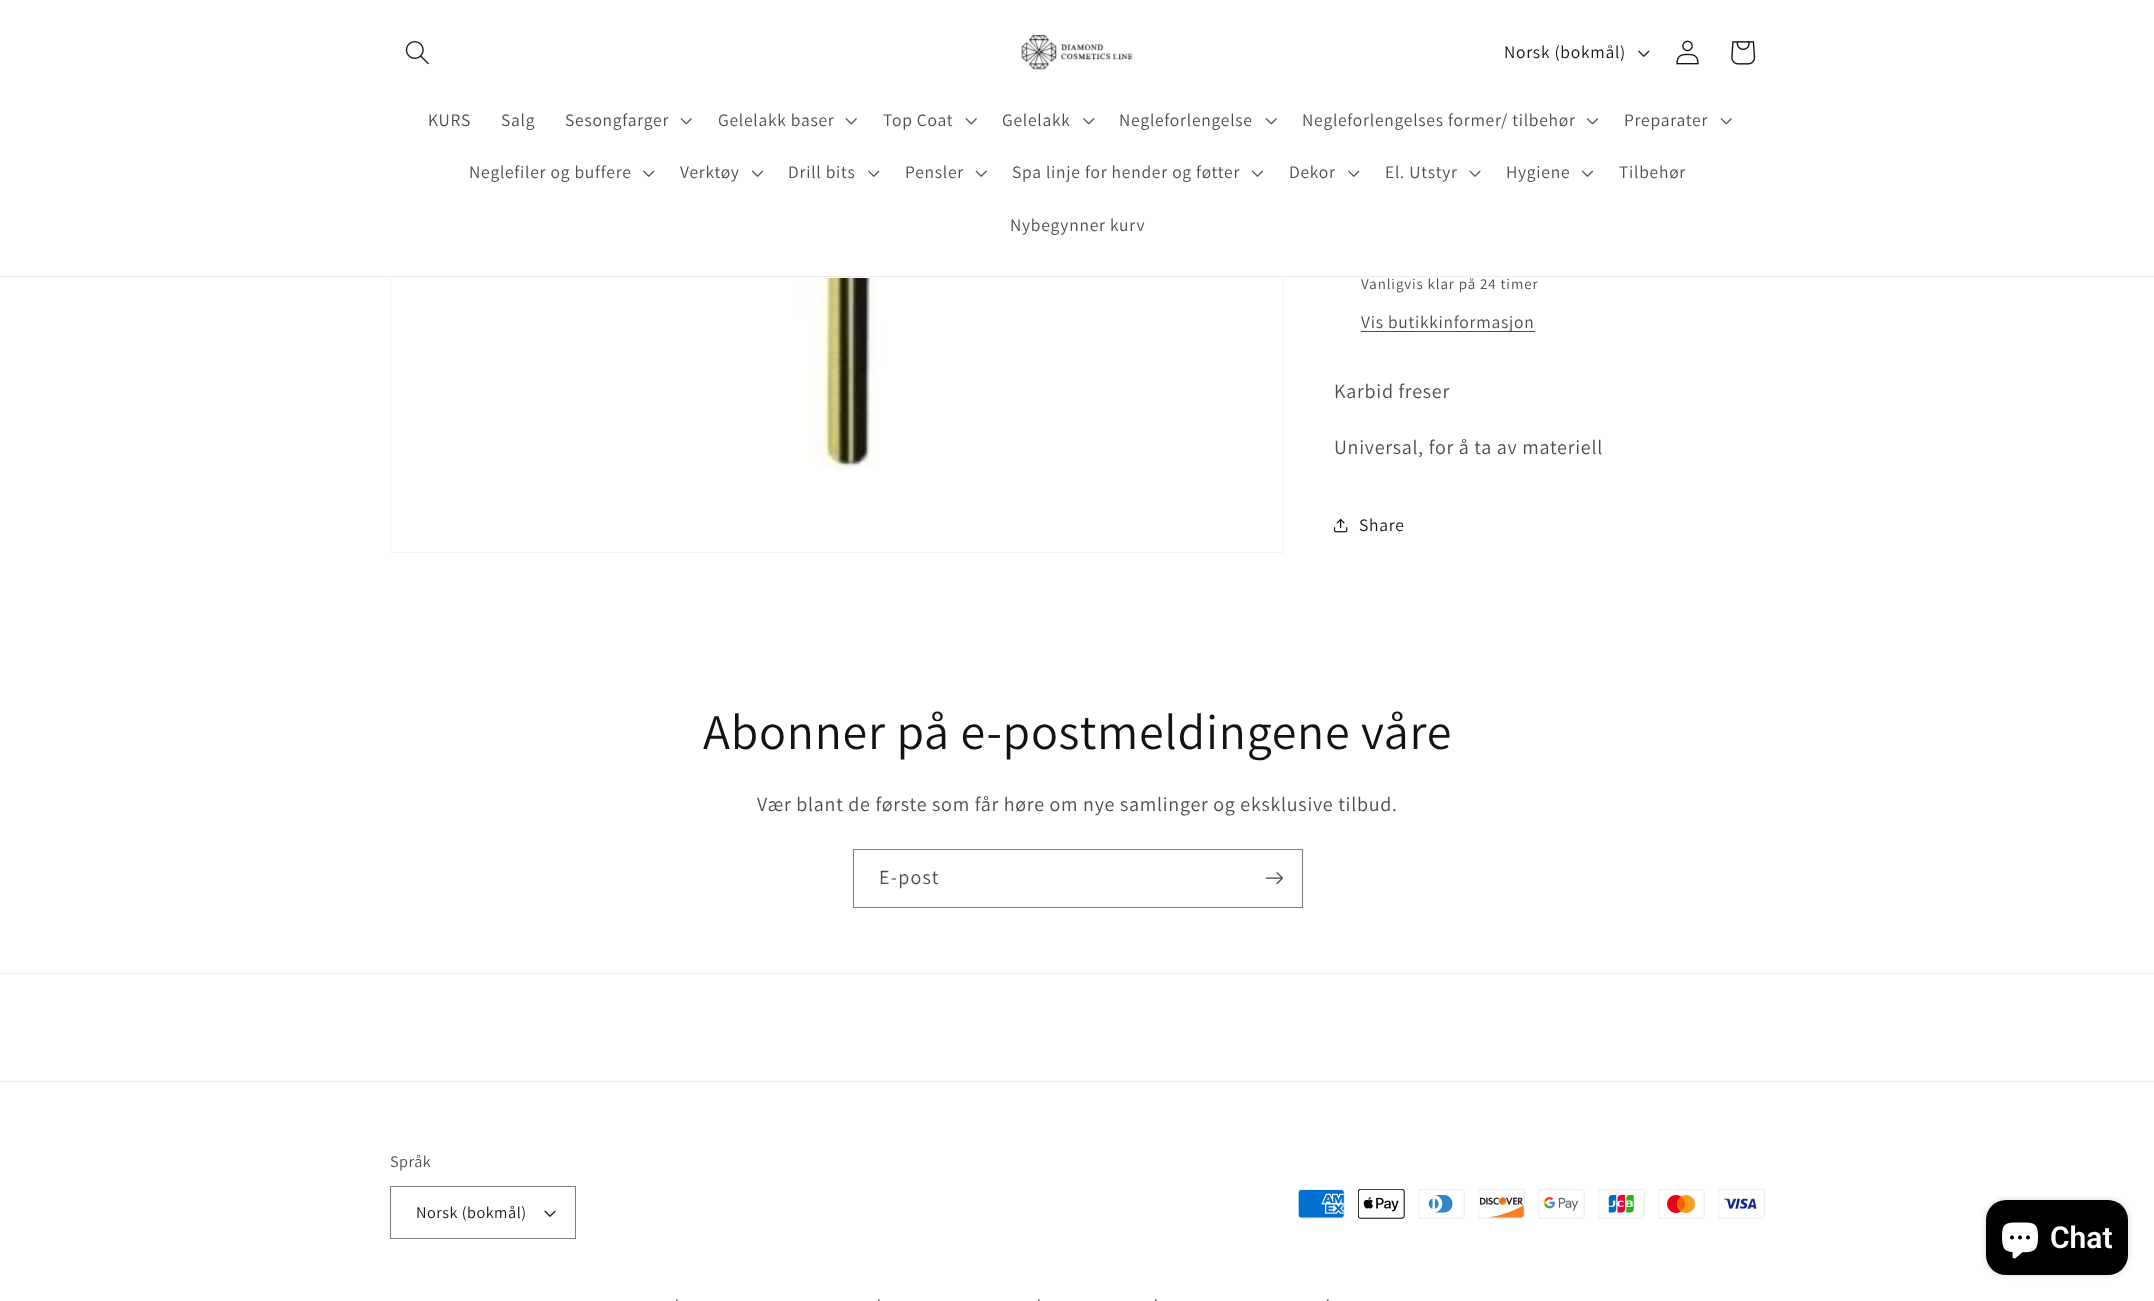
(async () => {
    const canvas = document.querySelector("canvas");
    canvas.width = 2154;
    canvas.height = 1301;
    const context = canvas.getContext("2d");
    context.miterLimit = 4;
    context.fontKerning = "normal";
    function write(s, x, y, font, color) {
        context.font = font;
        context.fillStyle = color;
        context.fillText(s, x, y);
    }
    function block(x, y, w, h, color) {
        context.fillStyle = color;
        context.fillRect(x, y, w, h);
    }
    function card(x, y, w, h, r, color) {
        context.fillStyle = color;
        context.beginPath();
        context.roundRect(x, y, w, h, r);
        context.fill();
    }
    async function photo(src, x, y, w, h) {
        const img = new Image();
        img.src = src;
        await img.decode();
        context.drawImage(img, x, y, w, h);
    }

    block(0, 0, 2154, 1301, "rgb(255, 255, 255)");
    context.strokeStyle = "rgb(243, 243, 243)";
    context.strokeRect(390.5, -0.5, 893, 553);
    context.letterSpacing = "0.9px";
    write("Vanligvis klar på 24 timer", 1361, 289, "15px Assistant", "rgb(77, 77, 77)");
    block(390, 0, 1083, 278, "rgb(255, 255, 255)");
    block(0, 276, 2154, 1, "rgb(236, 236, 236)");
    await photo("media/1.png", 405, 41, 24, 24);
    await photo("media/2.png", 1021, 35, 113, 35);
    context.letterSpacing = "0.75px";
    write("Norsk (bokmål)", 1504, 58, "17.5px Assistant", "rgb(18, 18, 18)");
    await photo("media/3.png", 1638, 50, 12, 7);
    await photo("media/4.png", 1676, 40, 23, 25);
    await photo("media/5.png", 1731, 41, 25, 24);
    write("KURS", 428, 126, "17.5px Assistant", "rgb(77, 77, 77)");
    write("Salg", 501, 126, "17.5px Assistant", "rgb(77, 77, 77)");
    write("Sesongfarger", 565, 126, "17.5px Assistant", "rgb(77, 77, 77)");
    await photo("media/6.png", 680, 118, 12, 7);
    write("Gelelakk baser", 718, 126, "17.5px Assistant", "rgb(77, 77, 77)");
    await photo("media/6.png", 845, 118, 12, 7);
    write("Top Coat", 883, 126, "17.5px Assistant", "rgb(77, 77, 77)");
    await photo("media/6.png", 965, 118, 12, 7);
    write("Gelelakk", 1002, 126, "17.5px Assistant", "rgb(77, 77, 77)");
    await photo("media/7.png", 1083, 118, 12, 7);
    write("Negleforlengelse", 1119, 126, "17.5px Assistant", "rgb(77, 77, 77)");
    await photo("media/6.png", 1265, 118, 12, 7);
    write("Negleforlengelses former/ tilbehør", 1302, 126, "17.5px Assistant", "rgb(77, 77, 77)");
    await photo("media/8.png", 1586, 118, 13, 7);
    write("Preparater", 1624, 126, "17.5px Assistant", "rgb(77, 77, 77)");
    await photo("media/6.png", 1720, 118, 12, 7);
    write("Neglefiler og buffere", 469, 178, "17.5px Assistant", "rgb(77, 77, 77)");
    await photo("media/9.png", 643, 170, 12, 7);
    write("Verktøy", 680, 178, "17.5px Assistant", "rgb(77, 77, 77)");
    await photo("media/10.png", 751, 170, 13, 7);
    write("Drill bits", 788, 178, "17.5px Assistant", "rgb(77, 77, 77)");
    await photo("media/9.png", 868, 170, 12, 7);
    write("Pensler", 905, 178, "17.5px Assistant", "rgb(77, 77, 77)");
    await photo("media/11.png", 975, 170, 12, 7);
    write("Spa linje for hender og føtter", 1012, 178, "17.5px Assistant", "rgb(77, 77, 77)");
    await photo("media/10.png", 1251, 170, 13, 7);
    write("Dekor", 1289, 178, "17.5px Assistant", "rgb(77, 77, 77)");
    await photo("media/9.png", 1348, 170, 12, 7);
    write("El. Utstyr", 1385, 178, "17.5px Assistant", "rgb(77, 77, 77)");
    await photo("media/12.png", 1469, 170, 12, 7);
    write("Hygiene", 1506, 178, "17.5px Assistant", "rgb(77, 77, 77)");
    await photo("media/10.png", 1581, 170, 13, 7);
    write("Tilbehør", 1619, 178, "17.5px Assistant", "rgb(77, 77, 77)");
    write("Nybegynner kurv", 1010, 231, "17.5px Assistant", "rgb(77, 77, 77)");
    await photo("media/13.png", 795, 278, 113, 192);
    block(1361, 331, 174, 1, "rgb(77, 77, 77)");
    write("Vis butikkinformasjon", 1361, 328, "17.5px Assistant", "rgb(77, 77, 77)");
    write("Karbid freser", 1334, 398, "20px Assistant", "rgb(77, 77, 77)");
    write("Universal, for å ta av materiell", 1334, 454, "20px Assistant", "rgb(77, 77, 77)");
    await photo("media/14.png", 1333, 518, 15, 15);
    write("Share", 1359, 531, "17.5px Assistant", "rgb(18, 18, 18)");
    write("Abonner på e-postmeldingene våre", 703, 749, "50px Assistant", "rgb(18, 18, 18)");
    write("Vær blant de første som får høre om nye samlinger og eksklusive tilbud.", 757, 811, "20px Assistant", "rgb(77, 77, 77)");
    context.strokeStyle = "rgb(125, 125, 125)";
    context.strokeRect(853.5, 849.5, 449, 58);
    context.letterSpacing = "1.25px";
    write("E-post", 879, 884, "20px Assistant", "rgb(77, 77, 77)");
    await photo("media/15.png", 1265, 872, 18, 13);
    block(0, 973, 2154, 1, "rgb(236, 236, 236)");
    block(0, 1081, 2154, 1, "rgb(236, 236, 236)");
    context.letterSpacing = "0.5px";
    write("Språk", 390, 1167, "16.25px Assistant", "rgb(77, 77, 77)");
    await photo("media/16.png", 544, 1210, 12, 7);
    context.strokeRect(390.5, 1186.5, 185, 52);
    write("Norsk (bokmål)", 416, 1218, "16.25px Assistant", "rgb(18, 18, 18)");
    await photo("media/17.png", 1298, 1189, 47, 30);
    await photo("media/18.png", 1358, 1189, 47, 30);
    await photo("media/19.png", 1418, 1189, 47, 30);
    await photo("media/20.png", 1478, 1189, 47, 30);
    await photo("media/21.png", 1538, 1189, 47, 30);
    await photo("media/22.png", 1598, 1189, 47, 30);
    await photo("media/23.png", 1658, 1189, 47, 30);
    await photo("media/24.png", 1718, 1189, 47, 30);
    context.letterSpacing = "0.9px";
    write("·", 675, 1305, "15px Assistant", "rgb(77, 77, 77)");
    write("·", 877, 1305, "15px Assistant", "rgb(77, 77, 77)");
    write("·", 1037, 1305, "15px Assistant", "rgb(77, 77, 77)");
    write("·", 1154, 1305, "15px Assistant", "rgb(77, 77, 77)");
    write("·", 1326, 1305, "15px Assistant", "rgb(77, 77, 77)");
    context.fillStyle = "rgba(0, 0, 0, 0.15)";
    context.filter = "blur(3px)";
    context.beginPath();
    context.roundRect(1986, 1200, 142, 75, 20);
    context.fill();
    context.filter = "none";
    card(1986, 1200, 142, 75, 20, "rgb(0, 0, 0)");
    await photo("media/25.png", 2002, 1222, 36, 37);
    context.letterSpacing = "0px";
    write("Chat", 2050, 1248, "600 30px Roboto", "rgb(255, 255, 255)");
})();
